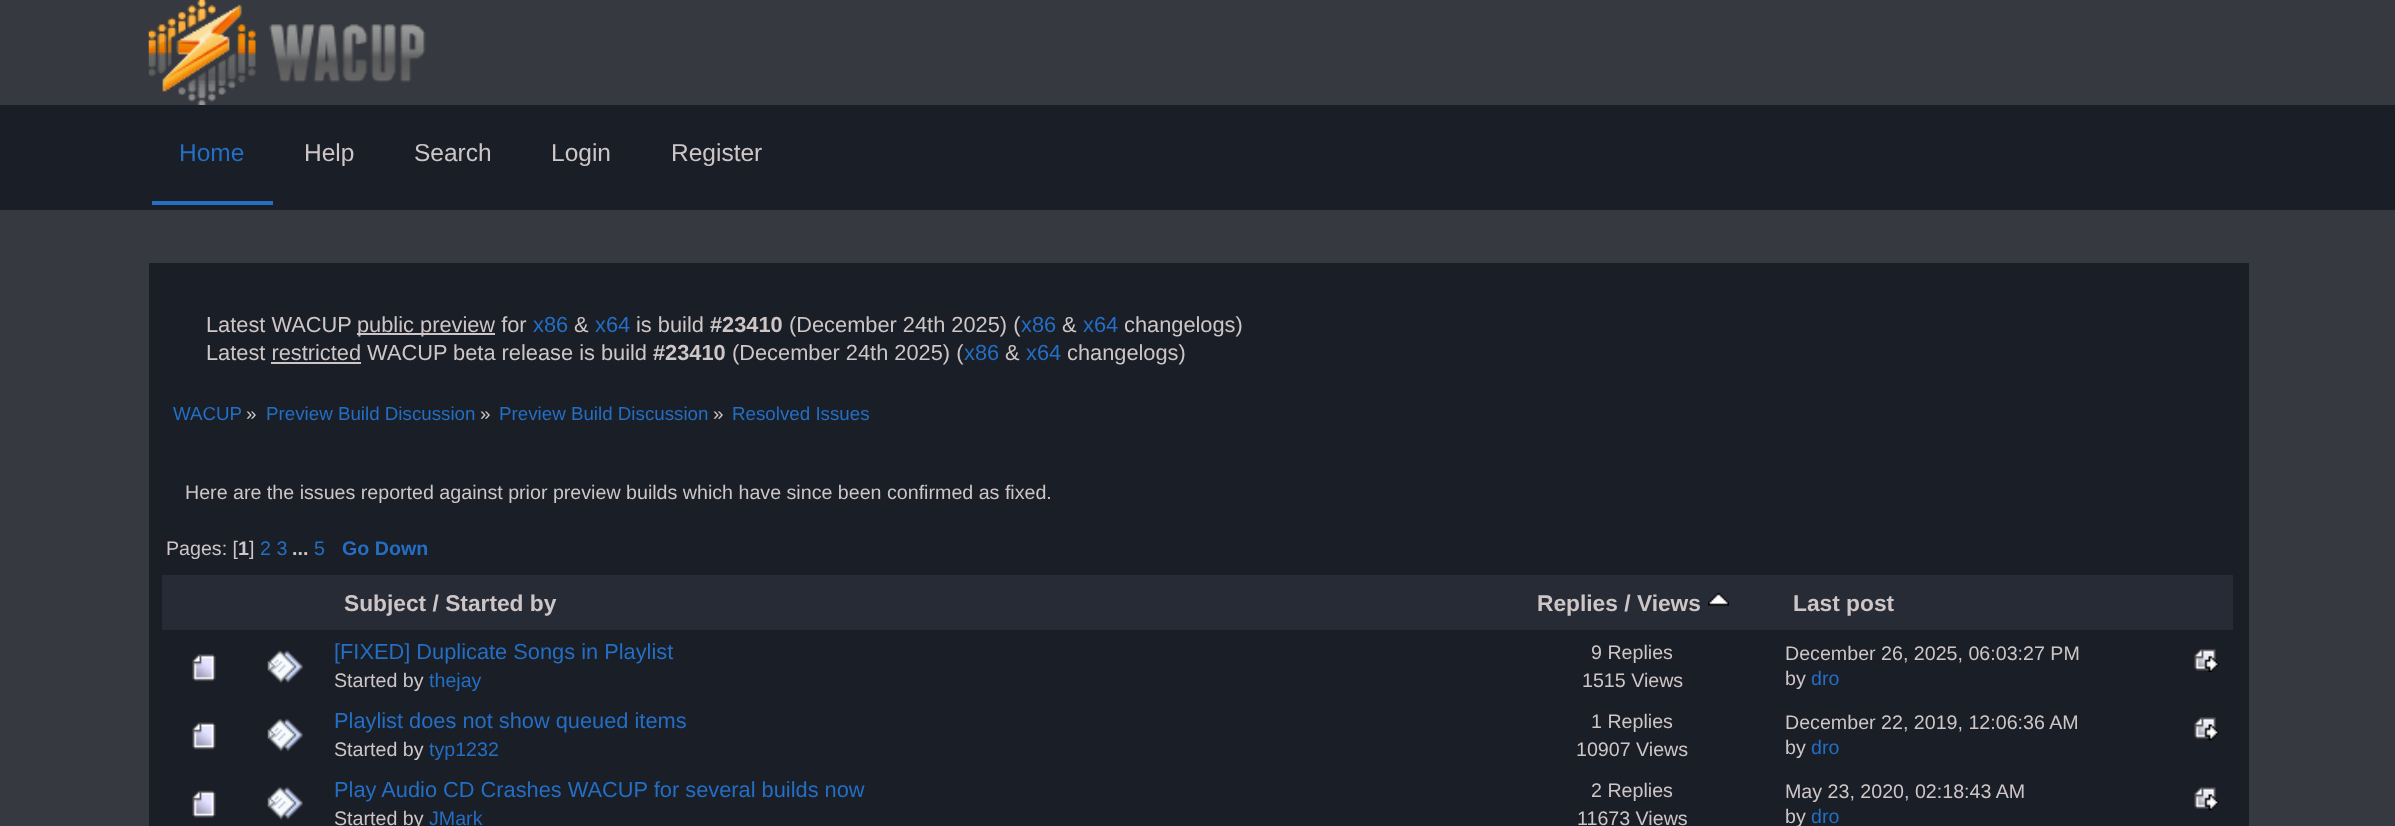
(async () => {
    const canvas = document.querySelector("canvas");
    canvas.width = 2395;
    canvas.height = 826;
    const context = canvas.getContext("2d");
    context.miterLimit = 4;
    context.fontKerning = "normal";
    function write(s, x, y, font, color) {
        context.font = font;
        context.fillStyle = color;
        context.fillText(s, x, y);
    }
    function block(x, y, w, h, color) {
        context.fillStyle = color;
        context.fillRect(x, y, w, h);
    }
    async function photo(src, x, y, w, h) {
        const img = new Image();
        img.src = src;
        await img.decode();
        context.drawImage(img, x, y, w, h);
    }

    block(0, 0, 2395, 826, "rgb(54, 57, 63)");
    await photo("media/1.png", 148, 0, 278, 105);
    block(0, 105, 2395, 105, "rgb(26, 30, 39)");
    block(152, 201, 121, 4, "rgb(36, 110, 195)");
    write("Home", 179, 161, "24.5px Liberation Sans", "rgb(36, 110, 195)");
    write("Help", 304, 161, "24.5px Liberation Sans", "rgb(206, 198, 198)");
    write("Search", 414, 161, "24.5px Liberation Sans", "rgb(206, 198, 198)");
    write("Login", 551, 161, "24.5px Liberation Sans", "rgb(206, 198, 198)");
    write("Register", 671, 161, "24.5px Liberation Sans", "rgb(206, 198, 198)");
    block(149, 263, 2100, 563, "rgb(26, 30, 39)");
    write("Latest WACUP", 206, 332, "21.8px Liberation Sans", "rgb(206, 198, 198)");
    block(357, 333, 138, 2, "rgb(206, 198, 198)");
    write("public preview for", 357, 332, "21.8px Liberation Sans", "rgb(206, 198, 198)");
    write("x86", 533, 332, "21.8px Liberation Sans", "rgb(36, 110, 195)");
    write("&", 574, 332, "21.8px Liberation Sans", "rgb(206, 198, 198)");
    write("x64", 595, 332, "21.8px Liberation Sans", "rgb(36, 110, 195)");
    write("is build", 636, 332, "21.8px Liberation Sans", "rgb(206, 198, 198)");
    write("#23410", 710, 332, "bold 21.8px Liberation Sans", "rgb(206, 198, 198)");
    write("(December 24th 2025) (", 789, 332, "21.8px Liberation Sans", "rgb(206, 198, 198)");
    write("x86", 1021, 332, "21.8px Liberation Sans", "rgb(36, 110, 195)");
    write("&", 1062, 332, "21.8px Liberation Sans", "rgb(206, 198, 198)");
    write("x64", 1083, 332, "21.8px Liberation Sans", "rgb(36, 110, 195)");
    write("changelogs)", 1124, 332, "21.8px Liberation Sans", "rgb(206, 198, 198)");
    write("Latest restricted WACUP beta release is build", 206, 360, "21.8px Liberation Sans", "rgb(206, 198, 198)");
    write("#23410", 653, 360, "bold 21.8px Liberation Sans", "rgb(206, 198, 198)");
    write("(December 24th 2025) (", 732, 360, "21.8px Liberation Sans", "rgb(206, 198, 198)");
    write("x86", 964, 360, "21.8px Liberation Sans", "rgb(36, 110, 195)");
    write("&", 1005, 360, "21.8px Liberation Sans", "rgb(206, 198, 198)");
    write("x64", 1026, 360, "21.8px Liberation Sans", "rgb(36, 110, 195)");
    write("changelogs)", 1067, 360, "21.8px Liberation Sans", "rgb(206, 198, 198)");
    block(271, 362, 90, 2, "rgb(206, 198, 198)");
    write("WACUP", 173, 420, "18.75px Liberation Sans", "rgb(36, 110, 195)");
    write("»", 246, 420, "18.75px Liberation Sans", "rgb(206, 198, 198)");
    write("Preview Build Discussion", 266, 420, "18.75px Liberation Sans", "rgb(36, 110, 195)");
    write("»", 480, 420, "18.75px Liberation Sans", "rgb(206, 198, 198)");
    write("Preview Build Discussion", 499, 420, "18.75px Liberation Sans", "rgb(36, 110, 195)");
    write("»", 713, 420, "18.75px Liberation Sans", "rgb(206, 198, 198)");
    write("Resolved Issues", 732, 420, "18.75px Liberation Sans", "rgb(36, 110, 195)");
    write("Here are the issues reported against prior preview builds which have since been confirmed as fixed.", 185, 499, "19.65px Liberation Sans", "rgb(206, 198, 198)");
    write("Pages: [", 166, 555, "19.65px Liberation Sans", "rgb(206, 198, 198)");
    write("1", 238, 555, "bold 19.65px Liberation Sans", "rgb(206, 198, 198)");
    write("]", 249, 555, "19.65px Liberation Sans", "rgb(206, 198, 198)");
    write("2 3", 260, 555, "19.65px Liberation Sans", "rgb(36, 110, 195)");
    write("...", 292, 555, "bold 19.65px Liberation Sans", "rgb(206, 198, 198)");
    write("5", 314, 555, "19.65px Liberation Sans", "rgb(36, 110, 195)");
    write("Go Down", 342, 555, "bold 19.65px Liberation Sans", "rgb(36, 110, 195)");
    block(162, 575, 2071, 55, "rgb(39, 43, 53)");
    write("Subject / Started by", 344, 611, "bold 22.75px Liberation Sans", "rgb(206, 198, 198)");
    write("Replies / Views", 1537, 611, "bold 22.75px Liberation Sans", "rgb(206, 198, 198)");
    await photo("media/2.png", 1708, 593, 21, 13);
    write("Last post", 1793, 611, "bold 22.75px Liberation Sans", "rgb(206, 198, 198)");
    await photo("media/3.png", 192, 654, 24, 28);
    await photo("media/4.png", 267, 650, 36, 33);
    write("[FIXED] Duplicate Songs in Playlist", 334, 659, "21.8px Liberation Sans", "rgb(36, 110, 195)");
    write("Started by", 334, 687, "19.65px Liberation Sans", "rgb(206, 198, 198)");
    write("thejay", 429, 687, "19.65px Liberation Sans", "rgb(36, 110, 195)");
    write("9 Replies", 1591, 659, "19.65px Liberation Sans", "rgb(206, 198, 198)");
    write("1515 Views", 1582, 687, "19.65px Liberation Sans", "rgb(206, 198, 198)");
    write("December 26, 2025, 06:03:27 PM", 1785, 660, "19.65px Liberation Sans", "rgb(206, 198, 198)");
    await photo("media/5.png", 2194, 649, 25, 23);
    write("by", 1785, 685, "19.65px Liberation Sans", "rgb(206, 198, 198)");
    write("dro", 1811, 685, "19.65px Liberation Sans", "rgb(36, 110, 195)");
    await photo("media/6.png", 192, 722, 24, 28);
    await photo("media/7.png", 267, 718, 36, 34);
    write("Playlist does not show queued items", 334, 728, "21.8px Liberation Sans", "rgb(36, 110, 195)");
    write("Started by", 334, 756, "19.65px Liberation Sans", "rgb(206, 198, 198)");
    write("typ1232", 429, 756, "19.65px Liberation Sans", "rgb(36, 110, 195)");
    write("1 Replies", 1591, 728, "19.65px Liberation Sans", "rgb(206, 198, 198)");
    write("10907 Views", 1576, 756, "19.65px Liberation Sans", "rgb(206, 198, 198)");
    write("December 22, 2019, 12:06:36 AM", 1785, 729, "19.65px Liberation Sans", "rgb(206, 198, 198)");
    await photo("media/8.png", 2194, 717, 25, 24);
    write("by", 1785, 754, "19.65px Liberation Sans", "rgb(206, 198, 198)");
    write("dro", 1811, 754, "19.65px Liberation Sans", "rgb(36, 110, 195)");
    await photo("media/9.png", 192, 790, 24, 28);
    await photo("media/10.png", 267, 787, 36, 33);
    write("Play Audio CD Crashes WACUP for several builds now", 334, 797, "21.8px Liberation Sans", "rgb(36, 110, 195)");
    write("Started by", 334, 825, "19.65px Liberation Sans", "rgb(206, 198, 198)");
    write("JMark", 429, 825, "19.65px Liberation Sans", "rgb(36, 110, 195)");
    write("2 Replies", 1591, 797, "19.65px Liberation Sans", "rgb(206, 198, 198)");
    write("11673 Views", 1577, 825, "19.65px Liberation Sans", "rgb(206, 198, 198)");
    write("May 23, 2020, 02:18:43 AM", 1785, 798, "19.65px Liberation Sans", "rgb(206, 198, 198)");
    await photo("media/8.png", 2194, 787, 25, 24);
    write("by", 1785, 823, "19.65px Liberation Sans", "rgb(206, 198, 198)");
    write("dro", 1811, 823, "19.65px Liberation Sans", "rgb(36, 110, 195)");
})();
